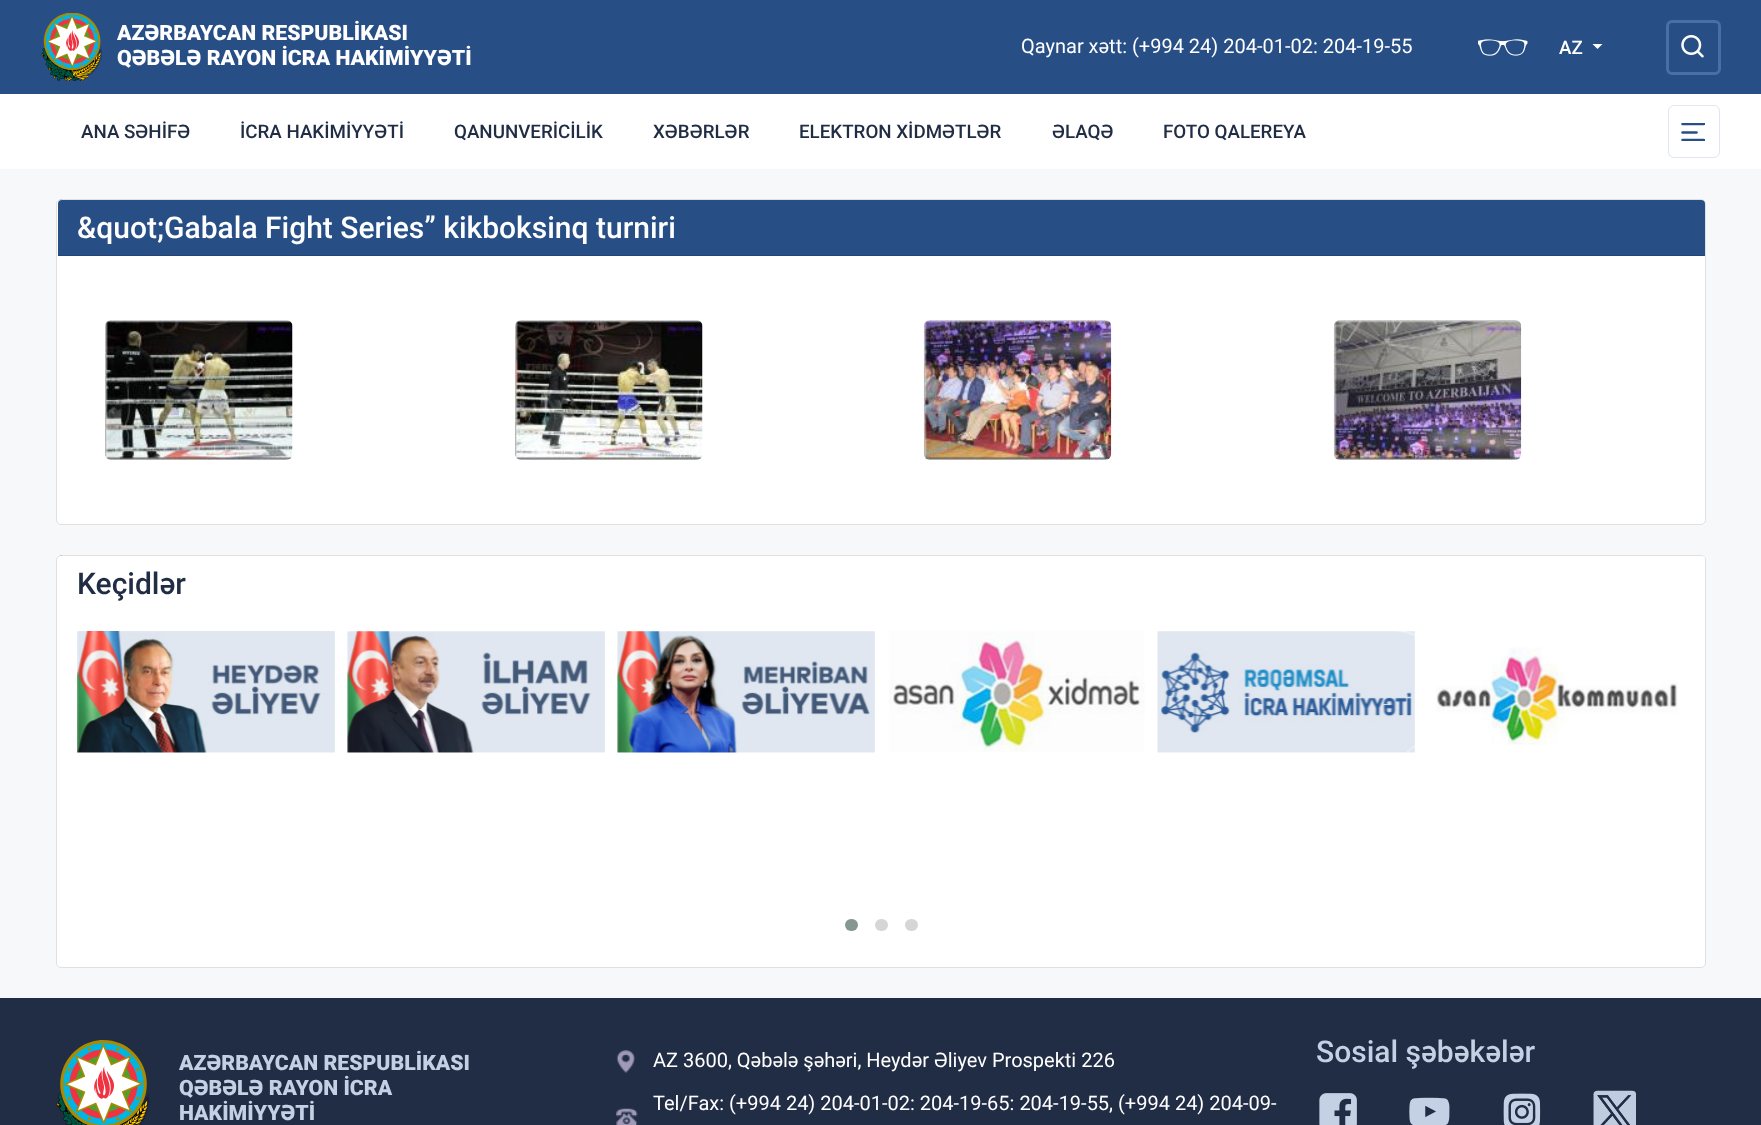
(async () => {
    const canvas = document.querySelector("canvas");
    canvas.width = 1761;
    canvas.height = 1125;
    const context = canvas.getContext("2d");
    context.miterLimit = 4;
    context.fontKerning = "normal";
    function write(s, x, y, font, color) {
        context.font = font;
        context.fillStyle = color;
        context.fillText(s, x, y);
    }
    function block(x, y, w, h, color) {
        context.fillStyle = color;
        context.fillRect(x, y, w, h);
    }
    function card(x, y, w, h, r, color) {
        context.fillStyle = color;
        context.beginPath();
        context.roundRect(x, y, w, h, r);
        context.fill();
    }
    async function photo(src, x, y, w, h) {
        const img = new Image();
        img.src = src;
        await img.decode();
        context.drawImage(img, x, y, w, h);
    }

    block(0, 0, 1761, 1125, "rgb(247, 248, 249)");
    block(0, 0, 1761, 94, "rgb(40, 78, 134)");
    await photo("media/1.png", 41, 13, 62, 68);
    write("AZƏRBAYCAN RESPUBLİKASI", 117, 40, "900 21.25px Roboto", "rgb(255, 255, 255)");
    write("QƏBƏLƏ RAYON İCRA HAKİMİYYƏTİ", 117, 65, "900 21.25px Roboto", "rgb(255, 255, 255)");
    write("Qaynar xətt: (+994 24) 204-01-02: 204-19-55", 1021, 53, "20px Roboto", "rgb(255, 255, 255)");
    await photo("media/2.png", 1478, 39, 50, 17);
    write("AZ", 1559, 54, "500 18.75px Roboto", "rgb(255, 255, 255)");
    context.beginPath();
    context.moveTo(1592.5, 44);
    context.lineTo(1602.5, 44);
    context.lineTo(1597.5, 49);
    context.closePath();
    context.fill();
    context.beginPath();
    context.roundRect(1667.5, 21.5, 52, 52, 4.5);
    context.strokeStyle = "rgb(74, 111, 165)";
    context.lineWidth = 3;
    context.stroke();
    await photo("media/3.png", 1681, 35, 23, 23);
    block(0, 94, 1761, 75, "rgb(255, 255, 255)");
    write("ANA SƏHİFƏ", 81, 138, "500 18.75px Roboto", "rgb(33, 45, 69)");
    write("İCRA HAKİMİYYƏTİ", 240, 138, "500 18.75px Roboto", "rgb(33, 45, 69)");
    write("QANUNVERİCİLİK", 454, 138, "500 18.75px Roboto", "rgb(33, 45, 69)");
    write("XƏBƏRLƏR", 653, 138, "500 18.75px Roboto", "rgb(33, 45, 69)");
    write("ELEKTRON XİDMƏTLƏR", 799, 138, "500 18.75px Roboto", "rgb(33, 45, 69)");
    write("ƏLAQƏ", 1052, 138, "500 18.75px Roboto", "rgb(33, 45, 69)");
    write("FOTO QALEREYA", 1163, 138, "500 18.75px Roboto", "rgb(33, 45, 69)");
    context.save();
    context.beginPath();
    context.rect(1681, 123, 24, 18);
    context.clip();
    context.beginPath();
    context.moveTo(1682.5, 124);
    context.lineTo(1704, 124);
    context.strokeStyle = "rgb(40, 78, 134)";
    context.lineWidth = 2.5;
    context.lineCap = "round";
    context.stroke();
    context.restore();
    context.beginPath();
    context.moveTo(1682.5, 132.5);
    context.lineTo(1696.5, 132.5);
    context.strokeStyle = "rgb(40, 78, 134)";
    context.lineWidth = 2.5;
    context.lineCap = "round";
    context.stroke();
    context.save();
    context.beginPath();
    context.rect(1681, 123, 24, 18);
    context.clip();
    context.beginPath();
    context.moveTo(1682.5, 140);
    context.lineTo(1704, 140);
    context.stroke();
    context.restore();
    context.beginPath();
    context.roundRect(1668.5, 105.5, 51, 52, 5.5);
    context.strokeStyle = "rgb(224, 231, 241)";
    context.lineWidth = 1;
    context.stroke();
    card(56, 199, 1650, 326, 5, "rgb(255, 255, 255)");
    context.beginPath();
    context.roundRect(56.5, 199.5, 1649, 325, 4.5);
    context.strokeStyle = "rgba(0, 0, 0, 0.12)";
    context.stroke();
    context.fillStyle = "rgb(40, 78, 134)";
    context.beginPath();
    context.roundRect(58, 200, 1647, 56, [4, 4, 0, 0]);
    context.fill();
    block(58, 255, 1647, 1, "rgb(35, 68, 117)");
    write("&quot;Gabala Fight Series” kikboksinq turniri", 77, 238, "500 30px Roboto", "rgb(255, 255, 255)");
    await photo("media/4.png", 105, 320, 188, 140);
    await photo("media/5.png", 515, 320, 188, 140);
    await photo("media/6.png", 923, 320, 189, 140);
    await photo("media/7.png", 1333, 320, 189, 140);
    card(56, 555, 1650, 413, 5, "rgb(255, 255, 255)");
    context.beginPath();
    context.roundRect(56.5, 555.5, 1649, 412, 4.5);
    context.stroke();
    context.beginPath();
    context.roundRect(58, 556, 1647, 55, [4, 4, 0, 0]);
    context.fill();
    write("Keçidlər", 77, 594, "500 30px Roboto", "rgb(33, 45, 69)");
    await photo("media/8.png", 77, 631, 258, 122);
    await photo("media/9.png", 347, 631, 258, 122);
    await photo("media/10.png", 617, 631, 258, 122);
    await photo("media/11.png", 889, 631, 256, 121);
    await photo("media/12.png", 1157, 631, 258, 122);
    await photo("media/13.png", 1436, 647, 242, 98);
    card(845, 919, 13, 12, 6, "rgb(134, 151, 145)");
    card(875, 919, 13, 12, 6, "rgb(214, 214, 214)");
    card(905, 919, 13, 12, 6, "rgb(214, 214, 214)");
    block(0, 998, 1761, 127, "rgb(33, 45, 69)");
    await photo("media/14.png", 56, 1040, 94, 85);
    write("AZƏRBAYCAN RESPUBLİKASI", 179, 1070, "900 21.25px Roboto", "rgb(196, 209, 228)");
    write("QƏBƏLƏ RAYON İCRA", 179, 1095, "900 21.25px Roboto", "rgb(196, 209, 228)");
    write("HAKİMİYYƏTİ", 179, 1120, "900 21.25px Roboto", "rgb(196, 209, 228)");
    await photo("media/15.png", 616, 1050, 19, 23);
    write("AZ 3600, Qəbələ şəhəri, Heydər Əliyev Prospekti 226", 653, 1067, "20px Roboto", "rgb(255, 255, 255)");
    await photo("media/16.png", 616, 1108, 22, 17);
    write("Tel/Fax: (+994 24) 204-01-02: 204-19-65: 204-19-55, (+994 24) 204-09-", 653, 1110, "20px Roboto", "rgb(255, 255, 255)");
    write("Sosial şəbəkələr", 1316, 1062, "500 30px Roboto", "rgb(196, 209, 228)");
    await photo("media/17.png", 1319, 1093, 38, 32);
    await photo("media/18.png", 1409, 1097, 41, 28);
    await photo("media/19.png", 1503, 1093, 38, 32);
    await photo("media/20.png", 1593, 1090, 43, 35);
})();
